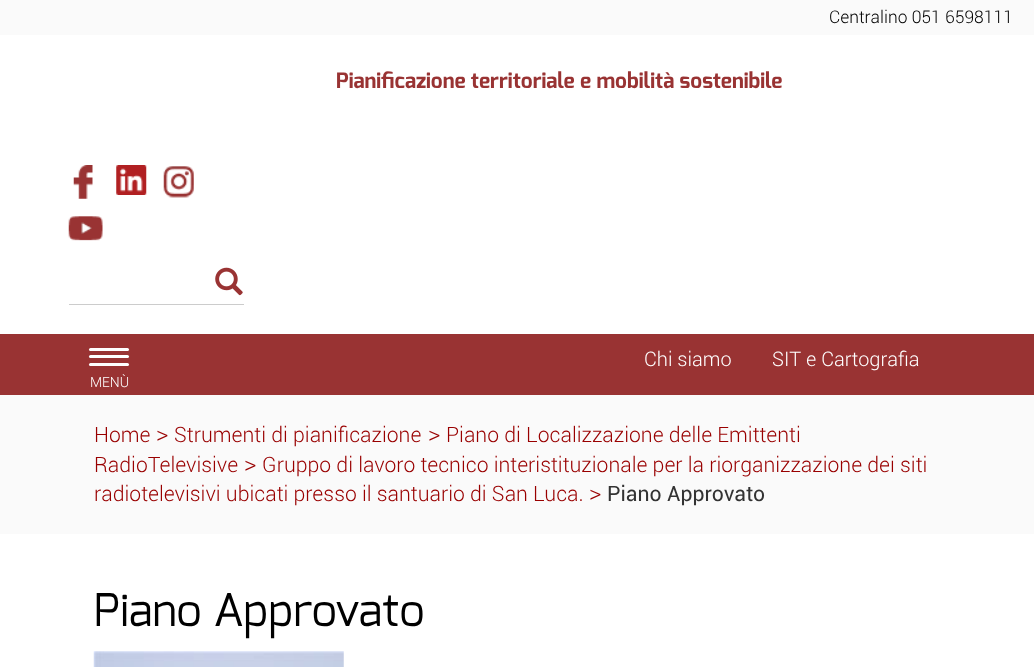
(async () => {
    const canvas = document.querySelector("canvas");
    canvas.width = 1034;
    canvas.height = 667;
    const context = canvas.getContext("2d");
    context.miterLimit = 4;
    context.fontKerning = "normal";
    function write(s, x, y, font, color) {
        context.font = font;
        context.fillStyle = color;
        context.fillText(s, x, y);
    }
    function block(x, y, w, h, color) {
        context.fillStyle = color;
        context.fillRect(x, y, w, h);
    }
    function card(x, y, w, h, r, color) {
        context.fillStyle = color;
        context.beginPath();
        context.roundRect(x, y, w, h, r);
        context.fill();
    }
    async function photo(src, x, y, w, h) {
        const img = new Image();
        img.src = src;
        await img.decode();
        context.drawImage(img, x, y, w, h);
    }

    block(0, 0, 1034, 667, "rgb(255, 255, 255)");
    block(0, 0, 1034, 35, "rgb(250, 250, 250)");
    write("Centralino 051 6598111", 829, 23, "300 17.5px Roboto", "rgb(0, 0, 0)");
    write("Pianificazione territoriale e mobilità sostenibile", 336, 88, "bold 21.25px Exo", "rgb(153, 51, 51)");
    await photo("media/1.png", 73, 165, 20, 34);
    await photo("media/2.png", 116, 165, 31, 30);
    await photo("media/3.png", 163, 166, 31, 32);
    await photo("media/4.png", 68, 216, 35, 25);
    await photo("media/5.png", 215, 267, 28, 29);
    block(69, 304, 175, 1, "rgb(204, 204, 204)");
    block(0, 334, 1034, 61, "rgb(153, 51, 51)");
    write("Chi siamo", 644, 366, "300 20px Roboto", "rgb(255, 255, 255)");
    write("SIT e Cartografia", 772, 366, "300 20px Roboto", "rgb(255, 255, 255)");
    card(89, 348, 40, 3, 1.5, "rgb(255, 255, 255)");
    card(89, 355, 40, 3, 1.5, "rgb(255, 255, 255)");
    card(89, 363, 40, 3, 1.5, "rgb(255, 255, 255)");
    write("MENÙ", 90, 387, "300 14px Roboto", "rgb(255, 255, 255)");
    block(0, 395, 1034, 139, "rgb(250, 250, 250)");
    write("Home", 94, 442, "300 21.25px Roboto", "rgb(153, 0, 0)");
    write(">", 156, 442, "300 24px Roboto", "rgb(153, 0, 0)");
    write("Strumenti di pianificazione", 174, 442, "300 21.25px Roboto", "rgb(153, 0, 0)");
    write(">", 428, 442, "300 24px Roboto", "rgb(153, 0, 0)");
    write("Piano di Localizzazione delle Emittenti", 446, 442, "300 21.25px Roboto", "rgb(153, 0, 0)");
    write("RadioTelevisive", 94, 472, "300 21.25px Roboto", "rgb(153, 0, 0)");
    write(">", 244, 472, "300 24px Roboto", "rgb(153, 0, 0)");
    write("Gruppo di lavoro tecnico interistituzionale per la riorganizzazione dei siti", 262, 472, "300 21.25px Roboto", "rgb(153, 0, 0)");
    write("radiotelevisivi ubicati presso il santuario di San Luca.", 94, 501, "300 21.25px Roboto", "rgb(153, 0, 0)");
    write(">", 589, 501, "300 24px Roboto", "rgb(153, 0, 0)");
    write("Piano Approvato", 607, 501, "21.25px Roboto", "rgb(51, 51, 51)");
    write("Piano Approvato", 94, 626, "45px Exo", "rgb(0, 0, 0)");
    await photo("media/6.png", 93, 651, 251, 16);
})();
